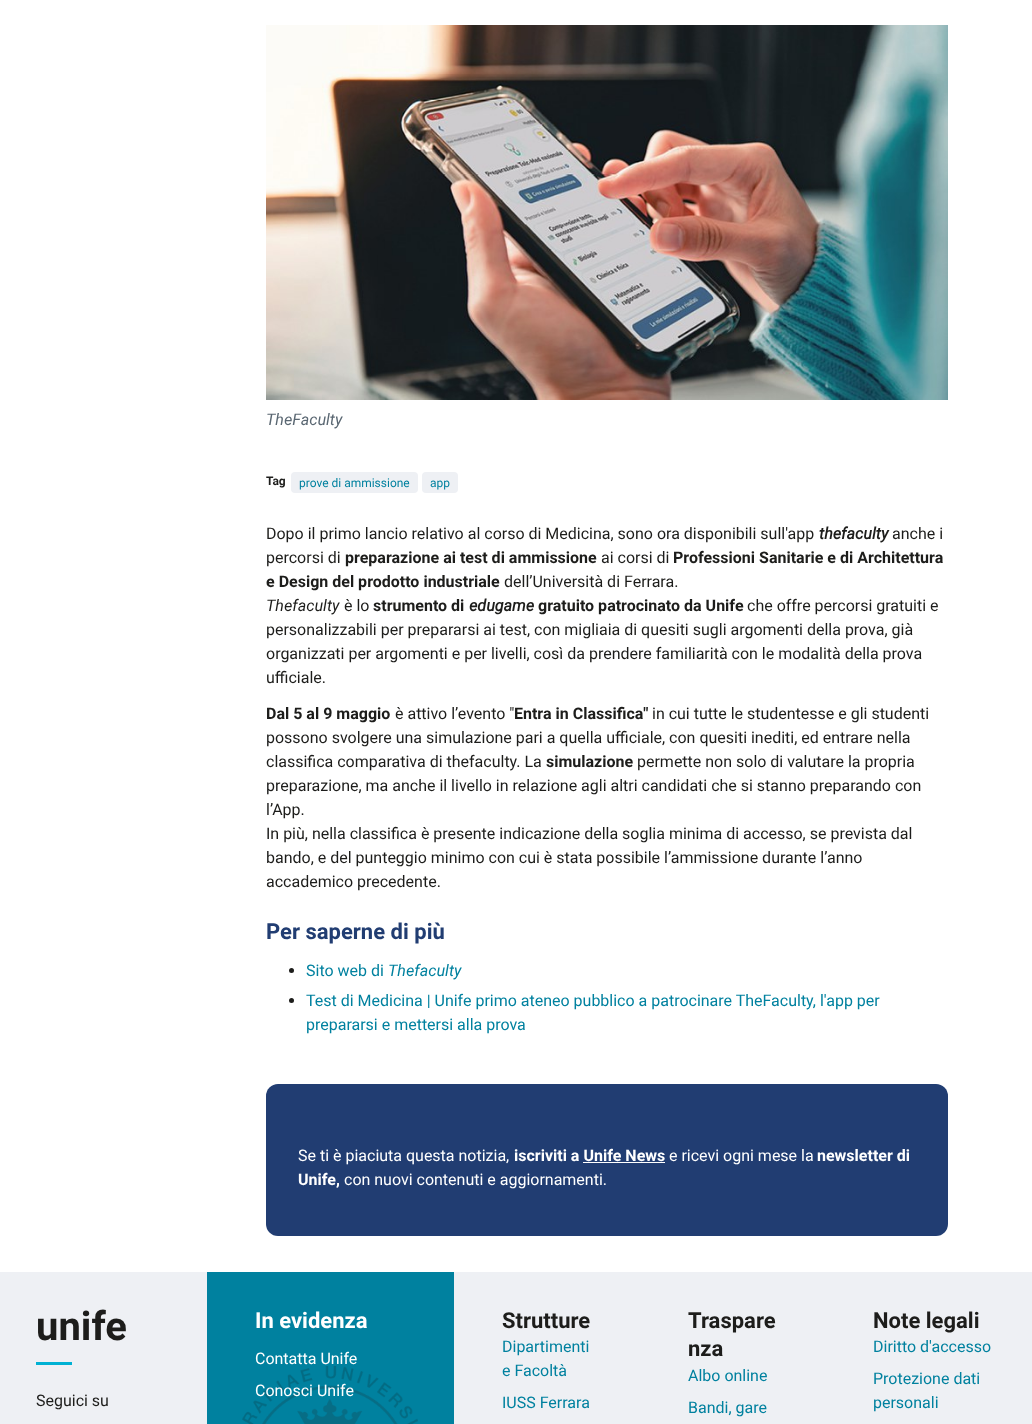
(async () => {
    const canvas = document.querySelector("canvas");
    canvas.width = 1032;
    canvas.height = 1424;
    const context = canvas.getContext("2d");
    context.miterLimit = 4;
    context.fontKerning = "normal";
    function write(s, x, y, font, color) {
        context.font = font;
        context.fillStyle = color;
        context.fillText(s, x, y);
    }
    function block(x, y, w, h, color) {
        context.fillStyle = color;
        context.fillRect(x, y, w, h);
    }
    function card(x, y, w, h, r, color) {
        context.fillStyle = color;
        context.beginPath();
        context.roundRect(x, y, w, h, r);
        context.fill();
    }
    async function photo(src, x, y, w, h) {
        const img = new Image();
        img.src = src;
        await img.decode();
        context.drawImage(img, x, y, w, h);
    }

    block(0, 0, 1032, 1424, "rgb(255, 255, 255)");
    await photo("media/1.png", 266, 25, 682, 375);
    write("TheFaculty", 266, 425, "italic 16px Roboto", "rgb(90, 103, 114)");
    write("Tag", 266, 485, "bold 12px Roboto", "rgb(29, 29, 27)");
    card(291, 472, 127, 21, 4, "rgb(238, 240, 244)");
    write("prove di ammissione", 299, 487, "12px Roboto", "rgb(0, 129, 159)");
    card(422, 472, 36, 21, 4, "rgb(238, 240, 244)");
    write("app", 430, 487, "12px Roboto", "rgb(0, 129, 159)");
    write("Dopo il primo lancio relativo al corso di Medicina, sono ora disponibili sull'app", 266, 539, "16px Roboto", "rgb(29, 29, 27)");
    write("thefaculty", 819, 539, "italic bold 16px Roboto", "rgb(29, 29, 27)");
    write("anche i", 892, 539, "16px Roboto", "rgb(29, 29, 27)");
    write("percorsi di", 266, 563, "16px Roboto", "rgb(29, 29, 27)");
    write("preparazione ai test di ammissione", 345, 563, "bold 16px Roboto", "rgb(29, 29, 27)");
    write("ai corsi di", 601, 563, "16px Roboto", "rgb(29, 29, 27)");
    write("Professioni Sanitarie e di Architettura", 673, 563, "bold 16px Roboto", "rgb(29, 29, 27)");
    write("e Design del prodotto industriale", 266, 587, "bold 16px Roboto", "rgb(29, 29, 27)");
    write("dell’Università di Ferrara.", 504, 587, "16px Roboto", "rgb(29, 29, 27)");
    write("Thefaculty", 266, 611, "italic 16px Roboto", "rgb(29, 29, 27)");
    write("è lo", 344, 611, "16px Roboto", "rgb(29, 29, 27)");
    write("strumento di", 373, 611, "bold 16px Roboto", "rgb(29, 29, 27)");
    write("edugame", 469, 611, "italic bold 16px Roboto", "rgb(29, 29, 27)");
    write("gratuito patrocinato da Unife", 538, 611, "bold 16px Roboto", "rgb(29, 29, 27)");
    write("che offre percorsi gratuiti e", 747, 611, "16px Roboto", "rgb(29, 29, 27)");
    write("personalizzabili per prepararsi ai test, con migliaia di quesiti sugli argomenti della prova, già", 266, 635, "16px Roboto", "rgb(29, 29, 27)");
    write("organizzati per argomenti e per livelli, così da prendere familiarità con le modalità della prova", 266, 659, "16px Roboto", "rgb(29, 29, 27)");
    write("ufficiale.", 266, 683, "16px Roboto", "rgb(29, 29, 27)");
    write("Dal 5 al 9 maggio", 266, 719, "bold 16px Roboto", "rgb(29, 29, 27)");
    write("è attivo l’evento \"", 395, 719, "16px Roboto", "rgb(29, 29, 27)");
    write("Entra in Classifica\"", 514, 719, "bold 16px Roboto", "rgb(29, 29, 27)");
    write("in cui tutte le studentesse e gli studenti", 652, 719, "16px Roboto", "rgb(29, 29, 27)");
    write("possono svolgere una simulazione pari a quella ufficiale, con quesiti inediti, ed entrare nella", 266, 743, "16px Roboto", "rgb(29, 29, 27)");
    write("classifica comparativa di thefaculty. La", 266, 767, "16px Roboto", "rgb(29, 29, 27)");
    write("simulazione", 546, 767, "bold 16px Roboto", "rgb(29, 29, 27)");
    write("permette non solo di valutare la propria", 637, 767, "16px Roboto", "rgb(29, 29, 27)");
    write("preparazione, ma anche il livello in relazione agli altri candidati che si stanno preparando con", 266, 791, "16px Roboto", "rgb(29, 29, 27)");
    write("l’App.", 266, 815, "16px Roboto", "rgb(29, 29, 27)");
    write("In più, nella classifica è presente indicazione della soglia minima di accesso, se prevista dal", 266, 839, "16px Roboto", "rgb(29, 29, 27)");
    write("bando, e del punteggio minimo con cui è stata possibile l’ammissione durante l’anno", 266, 863, "16px Roboto", "rgb(29, 29, 27)");
    write("accademico precedente.", 266, 887, "16px Roboto", "rgb(29, 29, 27)");
    write("Per saperne di più", 266, 939, "bold 22px Roboto", "rgb(33, 61, 114)");
    context.fillStyle = "rgb(29, 29, 27)";
    context.beginPath();
    context.arc(291.5, 970.5, 2.5, 0, Math.PI * 2);
    context.fill();
    write("Sito web di", 306, 976, "16px Roboto", "rgb(0, 129, 159)");
    write("Thefaculty", 388, 976, "italic 16px Roboto", "rgb(0, 129, 159)");
    context.fillStyle = "rgb(29, 29, 27)";
    context.beginPath();
    context.arc(291.5, 1000.5, 2.5, 0, Math.PI * 2);
    context.fill();
    write("Test di Medicina | Unife primo ateneo pubblico a patrocinare TheFaculty, l'app per", 306, 1006, "16px Roboto", "rgb(0, 129, 159)");
    write("prepararsi e mettersi alla prova", 306, 1030, "16px Roboto", "rgb(0, 129, 159)");
    card(266, 1084, 682, 152, 12, "rgb(33, 61, 114)");
    write("Se ti è piaciuta questa notizia,", 298, 1161, "16px Roboto", "rgb(255, 255, 255)");
    write("iscriviti a Unife News", 514, 1161, "bold 16px Roboto", "rgb(255, 255, 255)");
    block(583, 1162, 82, 1, "rgb(255, 255, 255)");
    write("e ricevi ogni mese la", 669, 1161, "16px Roboto", "rgb(255, 255, 255)");
    write("newsletter di", 817, 1161, "bold 16px Roboto", "rgb(255, 255, 255)");
    write("Unife,", 298, 1185, "bold 16px Roboto", "rgb(255, 255, 255)");
    write("con nuovi contenuti e aggiornamenti.", 344, 1185, "16px Roboto", "rgb(255, 255, 255)");
    block(0, 1272, 1032, 152, "rgb(238, 240, 244)");
    write("unife", 36, 1340, "bold 40px Roboto", "rgb(29, 29, 27)");
    block(36, 1362, 36, 3, "rgb(0, 177, 211)");
    write("Seguici su", 36, 1406, "16px Roboto", "rgb(29, 29, 27)");
    block(207, 1272, 247, 152, "rgb(0, 129, 159)");
    write("In evidenza", 255, 1328, "bold 22px Roboto", "rgb(255, 255, 255)");
    write("Contatta Unife", 255, 1364, "16px Roboto", "rgb(255, 255, 255)");
    await photo("media/2.png", 242, 1366, 176, 58);
    write("Conosci Unife", 255, 1396, "16px Roboto", "rgb(255, 255, 255)");
    write("Strutture", 502, 1328, "bold 22px Roboto", "rgb(29, 29, 27)");
    write("Dipartimenti", 502, 1352, "16px Roboto", "rgb(0, 129, 159)");
    write("e Facoltà", 502, 1376, "16px Roboto", "rgb(0, 129, 159)");
    write("IUSS Ferrara", 502, 1408, "16px Roboto", "rgb(0, 129, 159)");
    write("Traspare", 688, 1328, "bold 22px Roboto", "rgb(29, 29, 27)");
    write("nza", 688, 1356, "bold 22px Roboto", "rgb(29, 29, 27)");
    write("Albo online", 688, 1381, "16px Roboto", "rgb(0, 129, 159)");
    write("Bandi, gare", 688, 1413, "16px Roboto", "rgb(0, 129, 159)");
    write("Note legali", 873, 1328, "bold 22px Roboto", "rgb(29, 29, 27)");
    write("Diritto d'accesso", 873, 1352, "16px Roboto", "rgb(0, 129, 159)");
    write("Protezione dati", 873, 1384, "16px Roboto", "rgb(0, 129, 159)");
    write("personali", 873, 1408, "16px Roboto", "rgb(0, 129, 159)");
})();
